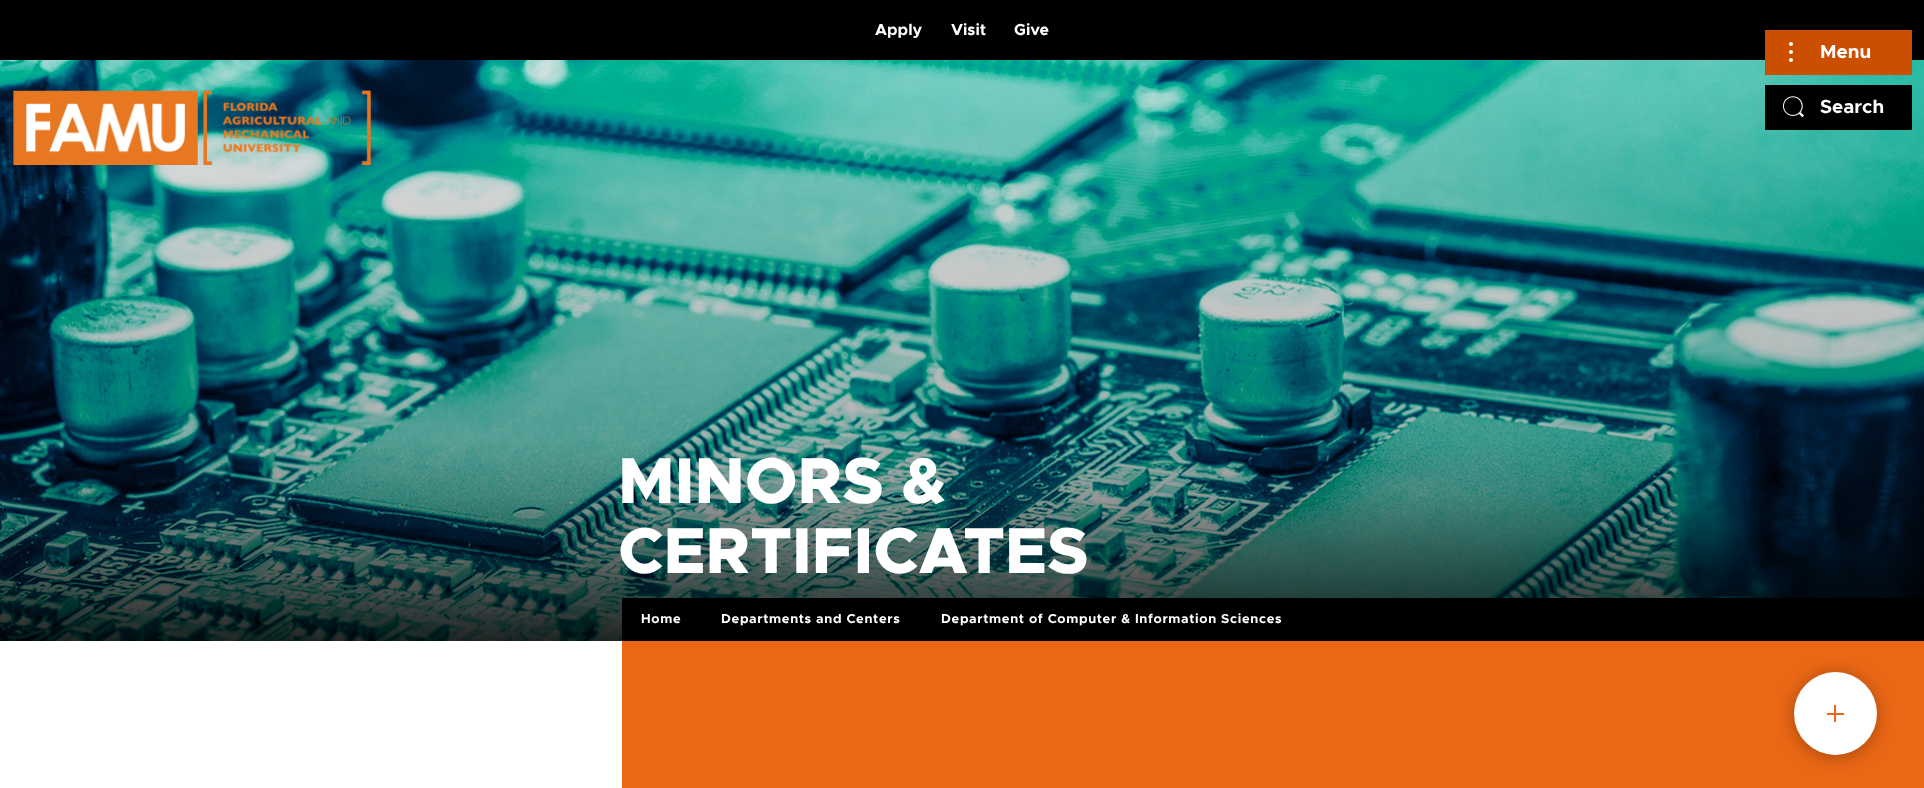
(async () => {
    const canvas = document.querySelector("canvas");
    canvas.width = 1924;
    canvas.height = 788;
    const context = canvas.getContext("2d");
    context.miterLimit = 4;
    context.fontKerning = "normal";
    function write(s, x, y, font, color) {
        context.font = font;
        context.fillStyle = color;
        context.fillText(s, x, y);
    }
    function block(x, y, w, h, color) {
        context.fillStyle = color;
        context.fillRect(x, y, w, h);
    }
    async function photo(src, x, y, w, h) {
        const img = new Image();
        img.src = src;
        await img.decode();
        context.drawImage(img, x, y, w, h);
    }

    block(0, 0, 1924, 788, "rgb(255, 255, 255)");
    block(0, 0, 1924, 60, "rgb(0, 0, 0)");
    write("Apply", 875, 35, "bold 16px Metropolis", "rgb(255, 255, 255)");
    write("Visit", 951, 35, "bold 16px Metropolis", "rgb(255, 255, 255)");
    write("Give", 1014, 35, "bold 16px Metropolis", "rgb(255, 255, 255)");
    await photo("media/3.png", 0, 60, 1924, 581);
    block(1765, 30, 147, 45, "rgb(204, 78, 0)");
    context.fillStyle = "rgb(255, 255, 255)";
    context.beginPath();
    context.arc(1791, 60, 2, 0, Math.PI * 2);
    context.fill();
    context.beginPath();
    context.arc(1791, 44, 2, 0, Math.PI * 2);
    context.fill();
    context.beginPath();
    context.arc(1791, 52, 2, 0, Math.PI * 2);
    context.fill();
    write("Menu", 1820, 58, "bold 19px Metropolis", "rgb(255, 255, 255)");
    block(1765, 85, 147, 45, "rgb(0, 0, 0)");
    await photo("media/1.png", 1783, 96, 21, 22);
    write("Search", 1820, 113, "bold 19px Metropolis", "rgb(255, 255, 255)");
    await photo("media/2.png", 13, 90, 358, 75);
    write("MINORS &", 618, 503, "800 65px Metropolis", "rgb(255, 255, 255)");
    write("CERTIFICATES", 618, 573, "800 65px Metropolis", "rgb(255, 255, 255)");
    block(622, 598, 1302, 43, "rgb(0, 0, 0)");
    context.letterSpacing = "0.65px";
    write("Home", 641, 623, "bold 13px Metropolis", "rgb(255, 255, 255)");
    write("Departments and Centers", 721, 623, "bold 13px Metropolis", "rgb(255, 255, 255)");
    write("Department of Computer & Information Sciences", 941, 623, "bold 13px Metropolis", "rgb(255, 255, 255)");
    block(622, 641, 1302, 147, "rgb(234, 103, 22)");
    context.fillStyle = "rgba(0, 0, 0, 0.3)";
    context.filter = "blur(8.5px)";
    context.beginPath();
    context.roundRect(1794, 674, 83, 83, 41.5);
    context.fill();
    context.filter = "none";
    context.fillStyle = "rgb(255, 255, 255)";
    context.beginPath();
    context.arc(1835.5, 713.5, 41.5, 0, Math.PI * 2);
    context.fill();
    block(1827, 713, 17, 2, "rgb(234, 103, 22)");
    block(1834, 705, 2, 17, "rgb(234, 103, 22)");
})();
